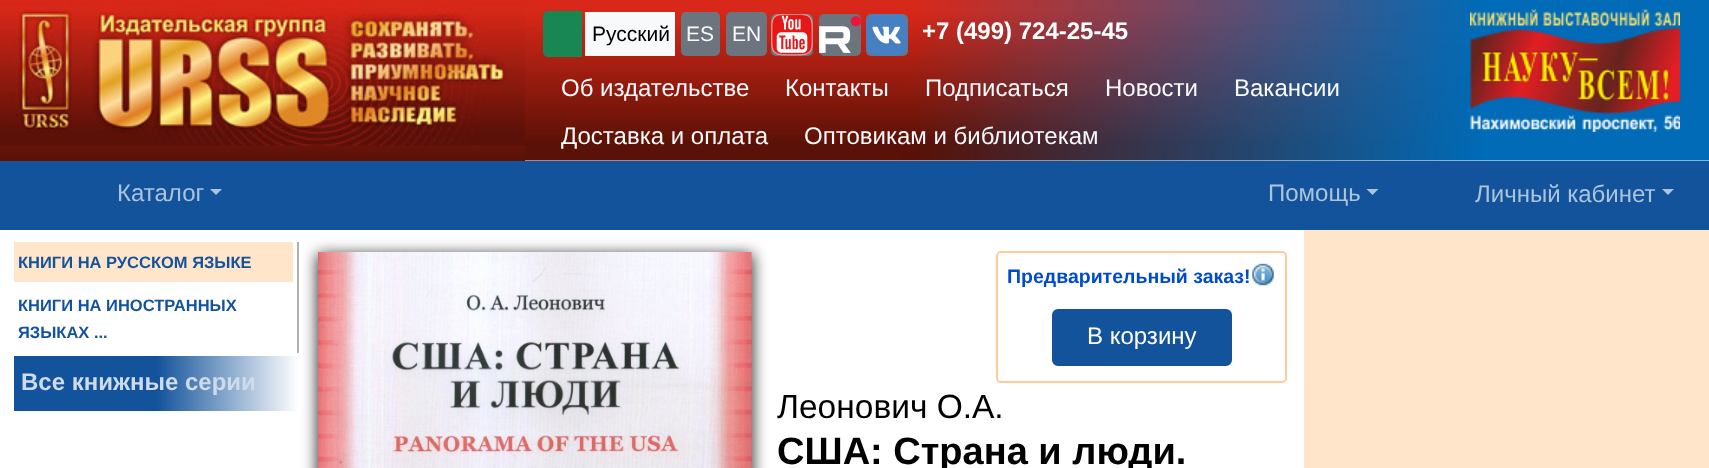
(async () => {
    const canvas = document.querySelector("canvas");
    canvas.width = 1709;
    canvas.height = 468;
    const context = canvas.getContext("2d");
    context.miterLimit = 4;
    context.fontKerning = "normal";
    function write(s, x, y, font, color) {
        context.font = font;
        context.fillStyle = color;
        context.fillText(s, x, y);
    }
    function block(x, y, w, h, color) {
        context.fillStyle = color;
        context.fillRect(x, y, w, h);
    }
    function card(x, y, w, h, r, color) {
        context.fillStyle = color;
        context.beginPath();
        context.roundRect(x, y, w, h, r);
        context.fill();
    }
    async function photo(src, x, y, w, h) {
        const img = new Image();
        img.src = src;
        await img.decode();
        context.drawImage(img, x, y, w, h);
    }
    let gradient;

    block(0, 0, 1709, 468, "rgb(255, 255, 255)");
    gradient = context.createLinearGradient(263, 0, 263, 161);
    gradient.addColorStop(0, "rgb(216, 40, 24)");
    gradient.addColorStop(1, "rgb(91, 17, 8)");
    context.fillStyle = gradient;
    context.fillRect(0, 145, 525, 16);
    await photo("media/1.png", 0, 0, 525, 146);
    await photo("media/2.png", 525, 0, 1184, 161);
    context.fillStyle = "rgb(25, 135, 84)";
    context.beginPath();
    context.roundRect(544, 12, 37, 44, [4, 0, 0, 4]);
    context.fill();
    context.strokeStyle = "rgb(25, 135, 84)";
    context.lineWidth = 2;
    context.stroke();
    block(585, 12, 90, 44, "rgb(248, 249, 250)");
    write("Русский", 592, 41, "21px Liberation Sans", "rgb(0, 0, 0)");
    card(681, 12, 39, 44, 5, "rgb(108, 117, 125)");
    write("ES", 686, 41, "21px Liberation Sans", "rgb(248, 249, 250)");
    card(726, 12, 41, 44, 5, "rgb(108, 117, 125)");
    write("EN", 732, 41, "21px Liberation Sans", "rgb(248, 249, 250)");
    card(771, 14, 42, 42, 5, "rgb(108, 117, 125)");
    await photo("media/3.png", 771, 14, 42, 42);
    card(819, 14, 42, 42, 5, "rgb(108, 117, 125)");
    await photo("media/4.png", 819, 16, 42, 37);
    card(866, 14, 42, 42, 5, "rgb(108, 117, 125)");
    await photo("media/5.png", 866, 14, 42, 42);
    write("+7 (499) 724-25-45", 922, 39, "bold 24px Liberation Sans", "rgb(255, 255, 255)");
    write("Об издательстве", 561, 96, "24px Liberation Sans", "rgb(248, 249, 250)");
    write("Контакты", 785, 96, "24px Liberation Sans", "rgb(248, 249, 250)");
    write("Подписаться", 925, 96, "24px Liberation Sans", "rgb(248, 249, 250)");
    write("Новости", 1105, 96, "24px Liberation Sans", "rgb(248, 249, 250)");
    write("Вакансии", 1234, 96, "24px Liberation Sans", "rgb(248, 249, 250)");
    write("Доставка и оплата", 561, 144, "24px Liberation Sans", "rgb(248, 249, 250)");
    write("Оптовикам и библиотекам", 804, 144, "24px Liberation Sans", "rgb(248, 249, 250)");
    await photo("media/6.png", 1470, 9, 210, 123);
    block(0, 161, 1709, 69, "rgb(19, 83, 155)");
    write("Каталог", 117, 201, "24px Liberation Sans", "rgb(172, 195, 220)");
    context.beginPath();
    context.moveTo(210, 189);
    context.lineTo(222, 189);
    context.lineTo(216, 195);
    context.closePath();
    context.fill();
    write("Помощь", 1268, 201, "24px Liberation Sans", "rgb(172, 195, 220)");
    context.beginPath();
    context.moveTo(1366.5, 189);
    context.lineTo(1378.5, 189);
    context.lineTo(1372.5, 195);
    context.closePath();
    context.fill();
    write("Личный кабинет", 1475, 202, "24px Liberation Sans", "rgb(172, 195, 220)");
    context.beginPath();
    context.moveTo(1662, 189);
    context.lineTo(1674, 189);
    context.lineTo(1668, 195);
    context.closePath();
    context.fill();
    block(297, 242, 2, 111, "rgb(177, 177, 177)");
    block(14, 242, 279, 40, "rgb(255, 229, 202)");
    write("КНИГИ НА РУССКОМ ЯЗЫКЕ", 18, 268, "bold 16.5px Liberation Sans", "rgb(19, 83, 155)");
    write("КНИГИ НА ИНОСТРАННЫХ", 18, 311, "bold 16.5px Liberation Sans", "rgb(19, 83, 155)");
    write("ЯЗЫКАХ ...", 18, 338, "bold 16.5px Liberation Sans", "rgb(19, 83, 155)");
    gradient = context.createLinearGradient(14, 383, 299, 383);
    gradient.addColorStop(0, "rgb(19, 83, 155)");
    gradient.addColorStop(0.5, "rgb(19, 83, 155)");
    gradient.addColorStop(1, "rgb(255, 255, 255)");
    context.fillStyle = gradient;
    context.fillRect(14, 356, 283, 55);
    write("Все книжные серии", 21, 390, "bold 24px Liberation Sans", "rgb(206, 219, 234)");
    context.fillStyle = "rgba(0, 0, 0, 0.8)";
    context.filter = "blur(7.5px)";
    context.beginPath();
    context.rect(317, 254, 436, 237);
    context.fill();
    context.filter = "none";
    await photo("media/7.png", 318, 252, 434, 216);
    context.beginPath();
    context.roundRect(997, 252, 289, 130, 4);
    context.strokeStyle = "rgb(255, 204, 153)";
    context.stroke();
    write("Предварительный заказ!", 1007, 283, "bold 19.5px Liberation Sans", "rgb(0, 75, 202)");
    await photo("media/8.png", 1252, 263, 22, 23);
    context.fillStyle = "rgb(19, 83, 155)";
    context.beginPath();
    context.roundRect(1053, 310, 178, 55, 5);
    context.fill();
    context.strokeStyle = "rgb(19, 83, 155)";
    context.stroke();
    write("В корзину", 1087, 344, "24px Liberation Sans", "rgb(255, 255, 255)");
    write("Леонович О.А.", 777, 418, "33.5px Liberation Sans", "rgb(0, 0, 0)");
    write("США: Страна и люди.", 777, 464, "bold 38px Liberation Sans", "rgb(0, 0, 0)");
    block(1304, 230, 405, 238, "rgb(255, 229, 202)");
})();
